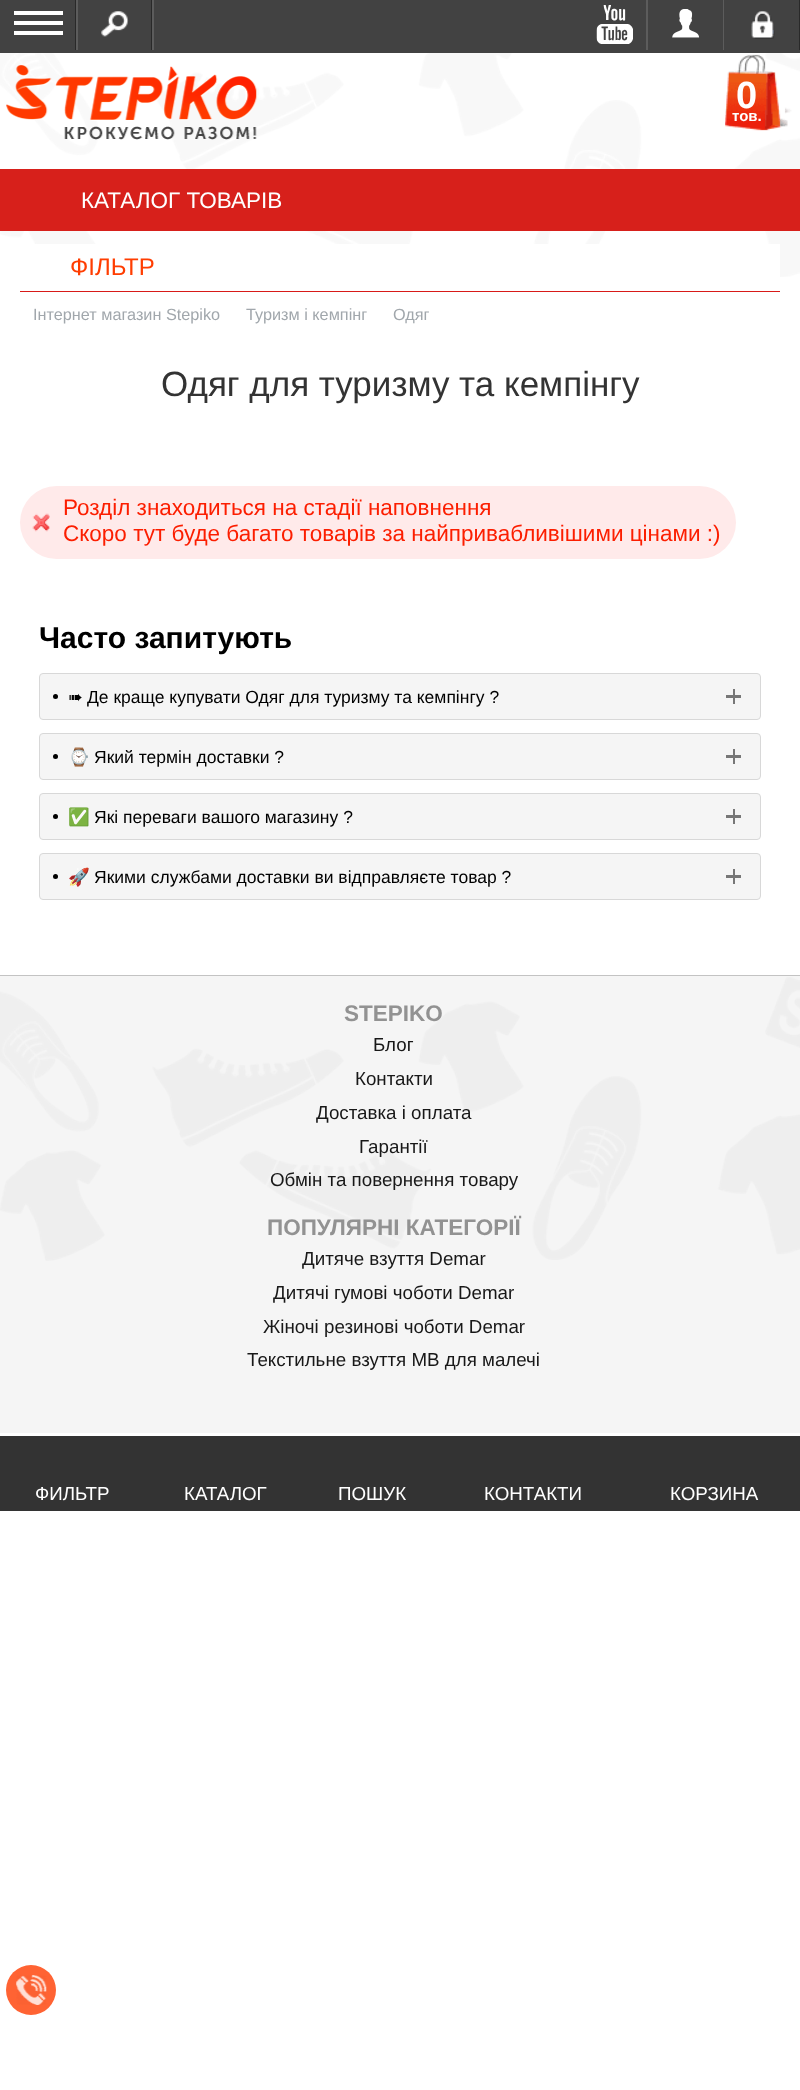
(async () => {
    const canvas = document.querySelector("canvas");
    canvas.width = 800;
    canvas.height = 2090;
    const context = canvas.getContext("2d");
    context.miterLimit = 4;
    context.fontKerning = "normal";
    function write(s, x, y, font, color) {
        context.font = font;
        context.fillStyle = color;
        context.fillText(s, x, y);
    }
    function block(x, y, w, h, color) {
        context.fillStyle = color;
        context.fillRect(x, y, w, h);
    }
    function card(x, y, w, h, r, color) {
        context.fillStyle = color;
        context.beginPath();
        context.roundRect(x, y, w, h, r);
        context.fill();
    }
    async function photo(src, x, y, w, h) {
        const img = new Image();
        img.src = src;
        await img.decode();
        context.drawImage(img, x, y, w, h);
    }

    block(0, 0, 800, 2090, "rgb(255, 255, 255)");
    await photo("media/1.png", 0, 53, 800, 224);
    block(0, 0, 800, 53, "rgb(66, 66, 66)");
    block(76, 0, 2, 50, "rgb(92, 92, 92)");
    block(75, 0, 1, 50, "rgb(41, 41, 41)");
    block(14, 11, 49, 4, "rgb(255, 255, 255)");
    block(14, 21, 49, 4, "rgb(255, 255, 255)");
    block(14, 31, 49, 4, "rgb(255, 255, 255)");
    block(152, 0, 2, 50, "rgb(92, 92, 92)");
    await photo("media/2.png", 101, 11, 28, 26);
    block(151, 0, 1, 50, "rgb(41, 41, 41)");
    await photo("media/3.png", 596, 5, 37, 39);
    block(646, 0, 2, 50, "rgb(92, 92, 92)");
    await photo("media/4.png", 672, 9, 28, 29);
    block(723, 0, 1, 50, "rgb(92, 92, 92)");
    await photo("media/5.png", 751, 11, 24, 28);
    block(799, 0, 1, 50, "rgb(41, 41, 41)");
    context.fillStyle = "rgb(255, 99, 51)";
    context.beginPath();
    context.arc(31, 1990, 25, 0, Math.PI * 2);
    context.fill();
    await photo("media/6.png", 16, 1975, 31, 30);
    await photo("media/7.png", 6, 65, 251, 75);
    await photo("media/8.png", 725, 54, 67, 77);
    write("0", 736, 108, "bold 38px Liberation Sans", "rgb(255, 255, 255)");
    write("тов.", 732, 121, "bold 15px Liberation Sans", "rgb(255, 255, 255)");
    block(0, 169, 800, 62, "rgb(215, 32, 27)");
    write("КАТАЛОГ ТОВАРІВ", 81, 208, "22.5px Liberation Sans", "rgb(255, 255, 255)");
    block(35, 244, 745, 33, "rgb(255, 255, 255)");
    block(20, 291, 760, 1, "rgb(216, 26, 24)");
    write("ФІЛЬТР", 70, 275, "24px Liberation Sans", "rgb(255, 61, 1)");
    write("Інтернет магазин Stepiko", 33, 320, "16.25px Liberation Sans", "rgb(161, 167, 172)");
    write("Туризм і кемпінг", 246, 320, "16.25px Liberation Sans", "rgb(161, 167, 172)");
    write("Одяг", 393, 320, "16.25px Liberation Sans", "rgb(161, 167, 172)");
    write("Одяг для туризму та кемпінгу", 161, 396, "35px Liberation Sans", "rgb(51, 51, 51)");
    card(20, 486, 716, 73, 36.5, "rgb(255, 234, 234)");
    await photo("media/9.png", 32, 513, 18, 19);
    write("Розділ знаходиться на стадії наповнення", 63, 515, "22.5px Liberation Sans", "rgb(252, 30, 0)");
    write("Скоро тут буде багато товарів за найпривабливішими цінами :)", 63, 541, "22.5px Liberation Sans", "rgb(252, 30, 0)");
    write("Часто запитують", 39, 648, "bold 30px Liberation Sans", "rgb(0, 0, 0)");
    context.fillStyle = "rgb(245, 245, 245)";
    context.beginPath();
    context.roundRect(39.5, 673.5, 721, 46, 3.5);
    context.fill();
    context.strokeStyle = "rgb(216, 216, 216)";
    context.stroke();
    context.fillStyle = "rgb(0, 0, 0)";
    context.beginPath();
    context.arc(55.5, 696.5, 2.5, 0, Math.PI * 2);
    context.fill();
    write("➠", 68, 703, "17.5px DejaVu Sans", "rgb(0, 0, 0)");
    write("Де краще купувати Одяг для туризму та кемпінгу ?", 87, 703, "17.5px Liberation Sans", "rgb(0, 0, 0)");
    block(726, 695, 15, 3, "rgb(119, 119, 119)");
    block(733, 689, 2, 15, "rgb(119, 119, 119)");
    context.fillStyle = "rgb(245, 245, 245)";
    context.beginPath();
    context.roundRect(39.5, 733.5, 721, 46, 3.5);
    context.fill();
    context.stroke();
    context.fillStyle = "rgb(0, 0, 0)";
    context.beginPath();
    context.arc(55.5, 756.5, 2.5, 0, Math.PI * 2);
    context.fill();
    write("⌚️", 68, 763, "17.5px Noto Color Emoji", "rgb(0, 0, 0)");
    write("Який термін доставки ?", 94, 763, "17.5px Liberation Sans", "rgb(0, 0, 0)");
    block(726, 755, 15, 3, "rgb(119, 119, 119)");
    block(733, 749, 2, 15, "rgb(119, 119, 119)");
    context.fillStyle = "rgb(245, 245, 245)";
    context.beginPath();
    context.roundRect(39.5, 793.5, 721, 46, 3.5);
    context.fill();
    context.stroke();
    context.fillStyle = "rgb(0, 0, 0)";
    context.beginPath();
    context.arc(55.5, 816.5, 2.5, 0, Math.PI * 2);
    context.fill();
    write("✅", 68, 823, "17.5px Noto Color Emoji", "rgb(0, 0, 0)");
    write("Які переваги вашого магазину ?", 94, 823, "17.5px Liberation Sans", "rgb(0, 0, 0)");
    block(726, 815, 15, 3, "rgb(119, 119, 119)");
    block(733, 809, 2, 15, "rgb(119, 119, 119)");
    context.fillStyle = "rgb(245, 245, 245)";
    context.beginPath();
    context.roundRect(39.5, 853.5, 721, 46, 3.5);
    context.fill();
    context.stroke();
    context.fillStyle = "rgb(0, 0, 0)";
    context.beginPath();
    context.arc(55.5, 876.5, 2.5, 0, Math.PI * 2);
    context.fill();
    write("🚀", 68, 883, "17.5px Noto Color Emoji", "rgb(0, 0, 0)");
    write("Якими службами доставки ви відправляєте товар ?", 94, 883, "17.5px Liberation Sans", "rgb(0, 0, 0)");
    block(726, 875, 15, 3, "rgb(119, 119, 119)");
    block(733, 869, 2, 15, "rgb(119, 119, 119)");
    block(0, 976, 800, 457, "rgb(245, 245, 245)");
    await photo("media/10.png", 0, 977, 800, 284);
    block(0, 975, 800, 1, "rgb(195, 195, 195)");
    write("STEPIKO", 344, 1021, "bold 22.5px Liberation Sans", "rgb(146, 146, 146)");
    write("Блог", 373, 1051, "18.75px Liberation Sans", "rgb(24, 24, 24)");
    write("Контакти", 355, 1085, "18.75px Liberation Sans", "rgb(24, 24, 24)");
    write("Доставка і оплата", 316, 1119, "18.75px Liberation Sans", "rgb(24, 24, 24)");
    write("Гарантії", 359, 1153, "18.75px Liberation Sans", "rgb(24, 24, 24)");
    write("Обмін та повернення товару", 270, 1186, "18.75px Liberation Sans", "rgb(24, 24, 24)");
    write("ПОПУЛЯРНІ КАТЕГОРІЇ", 267, 1235, "bold 22.5px Liberation Sans", "rgb(146, 146, 146)");
    write("Дитяче взуття Demar", 302, 1265, "18.75px Liberation Sans", "rgb(24, 24, 24)");
    write("Дитячі гумові чоботи Demar", 273, 1299, "18.75px Liberation Sans", "rgb(24, 24, 24)");
    write("Жіночі резинові чоботи Demar", 263, 1333, "18.75px Liberation Sans", "rgb(24, 24, 24)");
    write("Текстильне взуття MB для малечі", 247, 1366, "18.75px Liberation Sans", "rgb(24, 24, 24)");
    block(0, 1436, 800, 75, "rgb(51, 51, 51)");
    write("ФИЛЬТР", 35, 1500, "18.75px Liberation Sans", "rgb(255, 255, 255)");
    write("КАТАЛОГ", 184, 1500, "18.75px Liberation Sans", "rgb(255, 255, 255)");
    write("ПОШУК", 338, 1500, "18.75px Liberation Sans", "rgb(255, 255, 255)");
    write("КОНТАКТИ", 484, 1500, "18.75px Liberation Sans", "rgb(255, 255, 255)");
    write("КОРЗИНА", 670, 1500, "18.75px Liberation Sans", "rgb(255, 255, 255)");
})();
